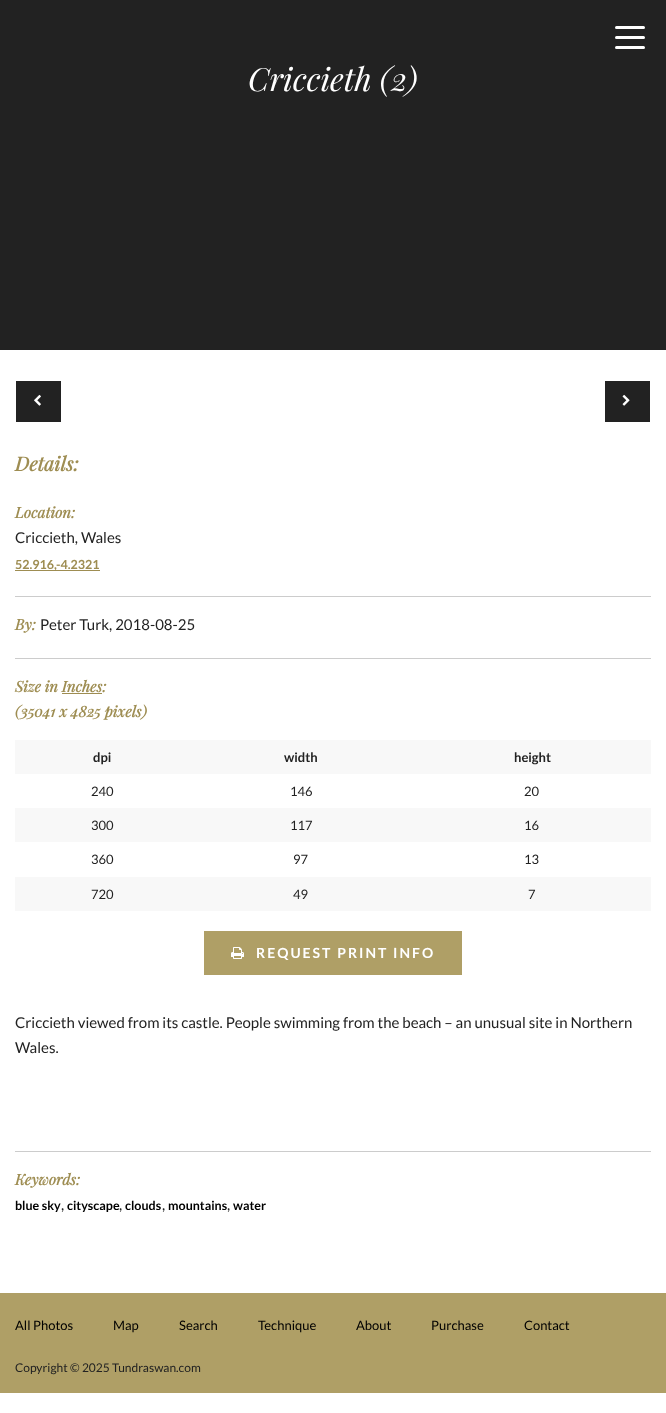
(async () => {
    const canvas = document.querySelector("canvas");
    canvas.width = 666;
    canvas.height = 1413;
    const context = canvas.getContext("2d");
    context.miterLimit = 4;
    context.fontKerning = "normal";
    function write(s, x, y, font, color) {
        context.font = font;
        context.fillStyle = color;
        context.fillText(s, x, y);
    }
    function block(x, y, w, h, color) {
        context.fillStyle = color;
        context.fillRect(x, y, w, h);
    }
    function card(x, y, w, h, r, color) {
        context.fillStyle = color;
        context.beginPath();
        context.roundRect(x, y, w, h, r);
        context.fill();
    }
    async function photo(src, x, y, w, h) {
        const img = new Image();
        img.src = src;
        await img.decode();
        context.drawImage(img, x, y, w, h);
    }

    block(0, 0, 666, 1413, "rgb(255, 255, 255)");
    block(0, 0, 666, 350, "rgb(34, 34, 34)");
    card(615, 26, 30, 3, 1.5, "rgb(255, 255, 255)");
    card(615, 36, 30, 3, 1.5, "rgb(255, 255, 255)");
    card(615, 46, 30, 3, 1.5, "rgb(255, 255, 255)");
    write("Criccieth (2)", 248, 91, "italic 32px Playfair Display", "rgb(255, 255, 255)");
    block(16, 381, 45, 41, "rgb(34, 34, 34)");
    await photo("media/1.png", 34, 394, 7, 12);
    block(605, 381, 45, 41, "rgb(34, 34, 34)");
    await photo("media/2.png", 622, 394, 8, 12);
    write("Details:", 15, 471, "italic bold 19.5px Playfair Display", "rgb(158, 141, 82)");
    block(15, 596, 636, 1, "rgb(204, 204, 204)");
    write("Location:", 15, 518, "italic bold 15px Playfair Display", "rgb(158, 141, 82)");
    write("Criccieth, Wales", 15, 543, "15px Lato", "rgb(34, 34, 34)");
    block(15, 570, 85, 1, "rgb(158, 141, 82)");
    write("52.916,-4.2321", 15, 569, "bold 12.5px Lato", "rgb(158, 141, 82)");
    block(15, 658, 636, 1, "rgb(204, 204, 204)");
    write("By:", 15, 630, "italic bold 15px Playfair Display", "rgb(158, 141, 82)");
    write("Peter Turk, 2018-08-25", 40, 630, "15px Lato", "rgb(34, 34, 34)");
    write("Size in Inches:", 15, 692, "italic bold 15px Playfair Display", "rgb(158, 141, 82)");
    block(62, 693, 40, 1, "rgb(158, 141, 82)");
    write("(35041 x 4825 pixels)", 15, 717, "italic bold 15px Playfair Display", "rgb(158, 141, 82)");
    block(15, 740, 636, 34, "rgb(248, 248, 248)");
    write("dpi", 93, 762, "bold 13px Lato", "rgb(34, 34, 34)");
    write("width", 284, 762, "bold 13px Lato", "rgb(34, 34, 34)");
    write("height", 514, 762, "bold 13px Lato", "rgb(34, 34, 34)");
    write("240", 91, 796, "13px Lato", "rgb(34, 34, 34)");
    write("146", 290, 796, "13px Lato", "rgb(34, 34, 34)");
    write("20", 524, 796, "13px Lato", "rgb(34, 34, 34)");
    block(15, 808, 636, 34, "rgb(248, 248, 248)");
    write("300", 91, 830, "13px Lato", "rgb(34, 34, 34)");
    write("117", 290, 830, "13px Lato", "rgb(34, 34, 34)");
    write("16", 524, 830, "13px Lato", "rgb(34, 34, 34)");
    write("360", 91, 864, "13px Lato", "rgb(34, 34, 34)");
    write("97", 293, 864, "13px Lato", "rgb(34, 34, 34)");
    write("13", 524, 864, "13px Lato", "rgb(34, 34, 34)");
    block(15, 877, 636, 34, "rgb(248, 248, 248)");
    write("720", 91, 899, "13px Lato", "rgb(34, 34, 34)");
    write("49", 293, 899, "13px Lato", "rgb(34, 34, 34)");
    write("7", 528, 899, "13px Lato", "rgb(34, 34, 34)");
    block(204, 931, 258, 44, "rgb(175, 159, 102)");
    await photo("media/3.png", 231, 947, 13, 12);
    context.letterSpacing = "2px";
    write("REQUEST PRINT INFO", 256, 958, "bold 14px Lato", "rgb(255, 255, 255)");
    context.letterSpacing = "0px";
    write("Criccieth viewed from its castle. People swimming from the beach – an unusual site in Northern", 15, 1028, "15px Lato", "rgb(34, 34, 34)");
    write("Wales.", 15, 1053, "15px Lato", "rgb(34, 34, 34)");
    block(15, 1151, 636, 1, "rgb(204, 204, 204)");
    write("Keywords:", 15, 1185, "italic bold 15px Playfair Display", "rgb(158, 141, 82)");
    write("blue sky", 15, 1210, "bold 12.5px Lato", "rgb(0, 0, 0)");
    write(",", 61, 1210, "15px Lato", "rgb(34, 34, 34)");
    write("cityscape", 67, 1210, "bold 12.5px Lato", "rgb(0, 0, 0)");
    write(",", 119, 1210, "15px Lato", "rgb(34, 34, 34)");
    write("clouds", 125, 1210, "bold 12.5px Lato", "rgb(0, 0, 0)");
    write(",", 162, 1210, "15px Lato", "rgb(34, 34, 34)");
    write("mountains", 168, 1210, "bold 12.5px Lato", "rgb(0, 0, 0)");
    write(",", 227, 1210, "15px Lato", "rgb(34, 34, 34)");
    write("water", 233, 1210, "bold 12.5px Lato", "rgb(0, 0, 0)");
    block(0, 1293, 666, 100, "rgb(175, 159, 102)");
    write("All Photos", 15, 1330, "13px Lato", "rgb(0, 0, 0)");
    write("Map", 113, 1330, "13px Lato", "rgb(0, 0, 0)");
    write("Search", 179, 1330, "13px Lato", "rgb(0, 0, 0)");
    write("Technique", 258, 1330, "13px Lato", "rgb(0, 0, 0)");
    write("About", 356, 1330, "13px Lato", "rgb(0, 0, 0)");
    write("Purchase", 431, 1330, "13px Lato", "rgb(0, 0, 0)");
    write("Contact", 524, 1330, "13px Lato", "rgb(0, 0, 0)");
    write("Copyright © 2025 Tundraswan.com", 15, 1372, "12px Lato", "rgb(34, 34, 34)");
})();
